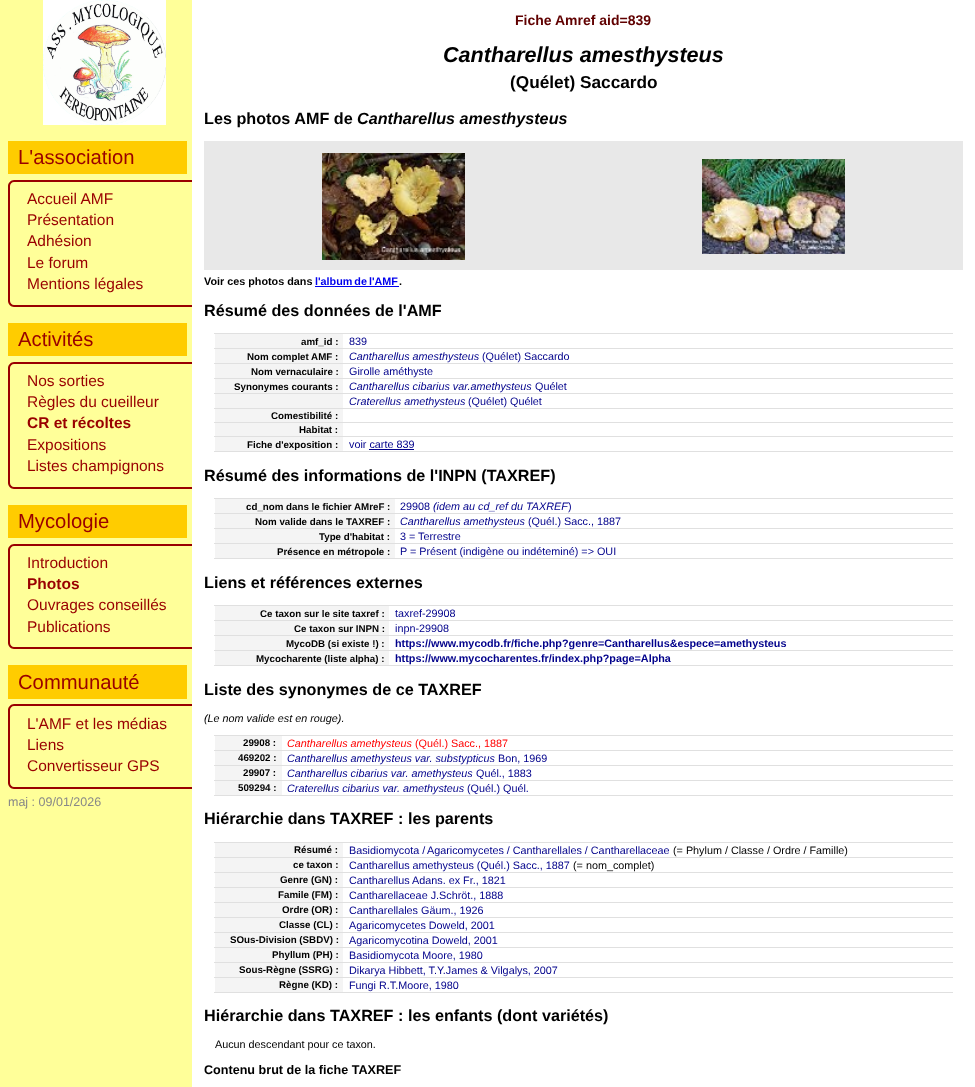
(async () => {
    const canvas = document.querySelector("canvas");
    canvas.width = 975;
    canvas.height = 1087;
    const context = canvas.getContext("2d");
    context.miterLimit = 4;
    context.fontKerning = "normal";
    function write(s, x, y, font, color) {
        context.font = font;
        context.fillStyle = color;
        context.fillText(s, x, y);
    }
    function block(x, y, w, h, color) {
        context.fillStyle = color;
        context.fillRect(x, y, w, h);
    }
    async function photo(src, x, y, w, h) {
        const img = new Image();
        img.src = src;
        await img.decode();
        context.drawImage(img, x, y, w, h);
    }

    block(0, 0, 975, 1087, "rgb(255, 255, 153)");
    block(43, 0, 123, 125, "rgb(255, 255, 255)");
    await photo("media/1.png", 43, 0, 123, 125);
    block(8, 141, 179, 33, "rgb(255, 204, 0)");
    write("L'association", 18, 164, "20.25px Liberation Sans", "rgb(153, 0, 0)");
    context.beginPath();
    context.moveTo(14, 180);
    context.lineTo(192, 180);
    context.lineTo(192, 307);
    context.lineTo(14, 307);
    context.bezierCurveTo(11, 307, 8, 304, 8, 301);
    context.lineTo(8, 186);
    context.bezierCurveTo(8, 183, 11, 180, 14, 180);
    context.closePath();
    context.moveTo(14, 182);
    context.lineTo(192, 182);
    context.lineTo(192, 305);
    context.lineTo(14, 305);
    context.bezierCurveTo(12, 305, 10, 303, 10, 301);
    context.lineTo(10, 186);
    context.bezierCurveTo(10, 184, 12, 182, 14, 182);
    context.closePath();
    context.fill("evenodd");
    write("Accueil AMF", 27, 204, "15.5px Liberation Sans", "rgb(153, 0, 0)");
    write("Présentation", 27, 225, "15.5px Liberation Sans", "rgb(153, 0, 0)");
    write("Adhésion", 27, 246, "15.5px Liberation Sans", "rgb(153, 0, 0)");
    write("Le forum", 27, 268, "15.5px Liberation Sans", "rgb(153, 0, 0)");
    write("Mentions légales", 27, 289, "15.5px Liberation Sans", "rgb(153, 0, 0)");
    block(8, 323, 179, 33, "rgb(255, 204, 0)");
    write("Activités", 18, 346, "20.25px Liberation Sans", "rgb(153, 0, 0)");
    context.beginPath();
    context.moveTo(14, 362);
    context.lineTo(192, 362);
    context.lineTo(192, 489);
    context.lineTo(14, 489);
    context.bezierCurveTo(11, 489, 8, 486, 8, 483);
    context.lineTo(8, 368);
    context.bezierCurveTo(8, 365, 11, 362, 14, 362);
    context.closePath();
    context.moveTo(14, 364);
    context.lineTo(192, 364);
    context.lineTo(192, 487);
    context.lineTo(14, 487);
    context.bezierCurveTo(12, 487, 10, 485, 10, 483);
    context.lineTo(10, 368);
    context.bezierCurveTo(10, 366, 12, 364, 14, 364);
    context.closePath();
    context.fill("evenodd");
    write("Nos sorties", 27, 386, "15.5px Liberation Sans", "rgb(153, 0, 0)");
    write("Règles du cueilleur", 27, 407, "15.5px Liberation Sans", "rgb(153, 0, 0)");
    write("CR et récoltes", 27, 428, "bold 15.5px Liberation Sans", "rgb(153, 0, 0)");
    write("Expositions", 27, 450, "15.5px Liberation Sans", "rgb(153, 0, 0)");
    write("Listes champignons", 27, 471, "15.5px Liberation Sans", "rgb(153, 0, 0)");
    block(8, 505, 179, 33, "rgb(255, 204, 0)");
    write("Mycologie", 18, 528, "20.25px Liberation Sans", "rgb(153, 0, 0)");
    context.beginPath();
    context.moveTo(14, 544);
    context.lineTo(192, 544);
    context.lineTo(192, 649);
    context.lineTo(14, 649);
    context.bezierCurveTo(11, 649, 8, 646, 8, 643);
    context.lineTo(8, 550);
    context.bezierCurveTo(8, 547, 11, 544, 14, 544);
    context.closePath();
    context.moveTo(14, 546);
    context.lineTo(192, 546);
    context.lineTo(192, 647);
    context.lineTo(14, 647);
    context.bezierCurveTo(12, 647, 10, 645, 10, 643);
    context.lineTo(10, 550);
    context.bezierCurveTo(10, 548, 12, 546, 14, 546);
    context.closePath();
    context.fill("evenodd");
    write("Introduction", 27, 568, "15.5px Liberation Sans", "rgb(153, 0, 0)");
    write("Photos", 27, 589, "bold 15.5px Liberation Sans", "rgb(153, 0, 0)");
    write("Ouvrages conseillés", 27, 610, "15.5px Liberation Sans", "rgb(153, 0, 0)");
    write("Publications", 27, 632, "15.5px Liberation Sans", "rgb(153, 0, 0)");
    block(8, 665, 179, 34, "rgb(255, 204, 0)");
    write("Communauté", 18, 689, "20.25px Liberation Sans", "rgb(153, 0, 0)");
    context.beginPath();
    context.moveTo(14, 704);
    context.lineTo(192, 704);
    context.lineTo(192, 789);
    context.lineTo(14, 789);
    context.bezierCurveTo(11, 789, 8, 786, 8, 783);
    context.lineTo(8, 710);
    context.bezierCurveTo(8, 707, 11, 704, 14, 704);
    context.closePath();
    context.moveTo(14, 706);
    context.lineTo(192, 706);
    context.lineTo(192, 787);
    context.lineTo(14, 787);
    context.bezierCurveTo(12, 787, 10, 785, 10, 783);
    context.lineTo(10, 710);
    context.bezierCurveTo(10, 708, 12, 706, 14, 706);
    context.closePath();
    context.fill("evenodd");
    write("L'AMF et les médias", 27, 729, "15.5px Liberation Sans", "rgb(153, 0, 0)");
    write("Liens", 27, 750, "15.5px Liberation Sans", "rgb(153, 0, 0)");
    write("Convertisseur GPS", 27, 771, "15.5px Liberation Sans", "rgb(153, 0, 0)");
    write("maj : 09/01/2026", 8, 806, "12.5px Liberation Sans", "rgb(136, 136, 136)");
    block(192, 0, 783, 1087, "rgb(255, 255, 255)");
    write("Fiche Amref aid=839", 515, 25, "bold 14px Liberation Sans", "rgb(96, 0, 0)");
    write("Cantharellus amesthysteus", 443, 62, "italic bold 21.6px Liberation Sans", "rgb(0, 0, 0)");
    write("(Quélet) Saccardo", 510, 88, "bold 17.25px Liberation Sans", "rgb(0, 0, 0)");
    write("Les photos AMF de", 204, 124, "bold 16.2px Liberation Sans", "rgb(0, 0, 0)");
    write("Cantharellus amesthysteus", 357, 124, "italic bold 16.2px Liberation Sans", "rgb(0, 0, 0)");
    block(204, 141, 759, 129, "rgb(232, 232, 232)");
    await photo("media/2.png", 322, 153, 143, 107);
    await photo("media/3.png", 702, 159, 143, 95);
    write("Voir ces photos dans", 204, 285, "bold 10.8px Liberation Sans", "rgb(0, 0, 0)");
    context.wordSpacing = "-1px";
    write("l'album de l'AMF", 315, 285, "bold 10.8px Liberation Sans", "rgb(0, 0, 238)");
    context.wordSpacing = "0px";
    write(".", 399, 285, "bold 10.8px Liberation Sans", "rgb(0, 0, 0)");
    block(315, 286, 84, 1, "rgb(0, 0, 238)");
    write("Résumé des données de l'AMF", 204, 316, "bold 16.2px Liberation Sans", "rgb(0, 0, 0)");
    block(214, 333, 739, 1, "rgb(224, 224, 224)");
    block(215, 334, 128, 14, "rgb(244, 244, 244)");
    write("amf_id :", 301, 345, "bold 9.75px Liberation Sans", "rgb(0, 0, 0)");
    write("839", 349, 345, "10.8px Liberation Sans", "rgb(0, 0, 139)");
    block(214, 348, 739, 1, "rgb(224, 224, 224)");
    block(215, 349, 128, 14, "rgb(244, 244, 244)");
    write("Nom complet AMF :", 247, 360, "bold 9.75px Liberation Sans", "rgb(0, 0, 0)");
    write("Cantharellus amesthysteus", 349, 360, "italic 10.8px Liberation Sans", "rgb(0, 0, 139)");
    write("(Quélet) Saccardo", 482, 360, "10.8px Liberation Sans", "rgb(0, 0, 139)");
    block(214, 363, 739, 1, "rgb(224, 224, 224)");
    block(215, 364, 128, 14, "rgb(244, 244, 244)");
    write("Nom vernaculaire :", 251, 375, "bold 9.75px Liberation Sans", "rgb(0, 0, 0)");
    write("Girolle améthyste", 349, 375, "10.8px Liberation Sans", "rgb(0, 0, 139)");
    block(214, 378, 739, 1, "rgb(224, 224, 224)");
    block(215, 379, 128, 14, "rgb(244, 244, 244)");
    write("Synonymes courants :", 234, 390, "bold 9.75px Liberation Sans", "rgb(0, 0, 0)");
    write("Cantharellus cibarius var.amethysteus", 349, 390, "italic 10.8px Liberation Sans", "rgb(0, 0, 139)");
    write("Quélet", 535, 390, "10.8px Liberation Sans", "rgb(0, 0, 139)");
    block(214, 393, 739, 1, "rgb(224, 224, 224)");
    block(215, 394, 128, 14, "rgb(244, 244, 244)");
    write("Craterellus amethysteus", 349, 405, "italic 10.8px Liberation Sans", "rgb(0, 0, 139)");
    write("(Quélet) Quélet", 468, 405, "10.8px Liberation Sans", "rgb(0, 0, 139)");
    block(214, 408, 739, 1, "rgb(224, 224, 224)");
    block(215, 409, 128, 13, "rgb(244, 244, 244)");
    write("Comestibilité :", 271, 419, "bold 9.75px Liberation Sans", "rgb(0, 0, 0)");
    block(214, 422, 739, 1, "rgb(224, 224, 224)");
    block(215, 423, 128, 13, "rgb(244, 244, 244)");
    write("Habitat :", 299, 433, "bold 9.75px Liberation Sans", "rgb(0, 0, 0)");
    block(214, 436, 739, 1, "rgb(224, 224, 224)");
    block(214, 451, 739, 1, "rgb(224, 224, 224)");
    block(215, 437, 128, 14, "rgb(244, 244, 244)");
    write("Fiche d'exposition :", 247, 448, "bold 9.75px Liberation Sans", "rgb(0, 0, 0)");
    write("voir carte 839", 349, 448, "10.8px Liberation Sans", "rgb(0, 0, 139)");
    block(369, 449, 45, 1, "rgb(0, 0, 139)");
    write("Résumé des informations de l'INPN (TAXREF)", 204, 481, "bold 16.2px Liberation Sans", "rgb(0, 0, 0)");
    block(214, 498, 739, 1, "rgb(224, 224, 224)");
    block(215, 499, 180, 14, "rgb(244, 244, 244)");
    write("cd_nom dans le fichier AMreF :", 246, 510, "bold 9.75px Liberation Sans", "rgb(0, 0, 0)");
    write("29908", 400, 510, "10.8px Liberation Sans", "rgb(0, 0, 139)");
    write("(idem au cd_ref du TAXREF", 433, 510, "italic 10.8px Liberation Sans", "rgb(0, 0, 139)");
    write(")", 568, 510, "10.8px Liberation Sans", "rgb(0, 0, 139)");
    block(214, 513, 739, 1, "rgb(224, 224, 224)");
    block(215, 514, 180, 14, "rgb(244, 244, 244)");
    write("Nom valide dans le TAXREF :", 255, 525, "bold 9.75px Liberation Sans", "rgb(0, 0, 0)");
    write("Cantharellus amethysteus", 400, 525, "italic 10.8px Liberation Sans", "rgb(0, 0, 139)");
    write("(Quél.) Sacc., 1887", 528, 525, "10.8px Liberation Sans", "rgb(0, 0, 139)");
    block(214, 528, 739, 1, "rgb(224, 224, 224)");
    block(215, 529, 180, 14, "rgb(244, 244, 244)");
    write("Type d'habitat :", 319, 540, "bold 9.75px Liberation Sans", "rgb(0, 0, 0)");
    write("3 = Terrestre", 400, 540, "10.8px Liberation Sans", "rgb(0, 0, 139)");
    block(214, 543, 739, 1, "rgb(224, 224, 224)");
    block(214, 558, 739, 1, "rgb(224, 224, 224)");
    block(215, 544, 180, 14, "rgb(244, 244, 244)");
    write("Présence en métropole :", 277, 555, "bold 9.75px Liberation Sans", "rgb(0, 0, 0)");
    write("P = Présent (indigène ou indéteminé) => OUI", 400, 555, "10.8px Liberation Sans", "rgb(0, 0, 139)");
    write("Liens et références externes", 204, 588, "bold 16.2px Liberation Sans", "rgb(0, 0, 0)");
    block(214, 605, 739, 1, "rgb(224, 224, 224)");
    block(215, 606, 174, 14, "rgb(244, 244, 244)");
    write("Ce taxon sur le site taxref :", 260, 617, "bold 9.75px Liberation Sans", "rgb(0, 0, 0)");
    write("taxref-29908", 395, 617, "10.8px Liberation Sans", "rgb(0, 0, 139)");
    block(214, 620, 739, 1, "rgb(224, 224, 224)");
    block(215, 621, 174, 14, "rgb(244, 244, 244)");
    write("Ce taxon sur INPN :", 294, 632, "bold 9.75px Liberation Sans", "rgb(0, 0, 0)");
    write("inpn-29908", 395, 632, "10.8px Liberation Sans", "rgb(0, 0, 139)");
    block(214, 635, 739, 1, "rgb(224, 224, 224)");
    block(215, 636, 174, 14, "rgb(244, 244, 244)");
    write("MycoDB (si existe !) :", 286, 647, "bold 9.75px Liberation Sans", "rgb(0, 0, 0)");
    write("https://www.mycodb.fr/fiche.php?genre=Cantharellus&espece=amethysteus", 395, 647, "bold 10.8px Liberation Sans", "rgb(0, 0, 139)");
    block(214, 650, 739, 1, "rgb(224, 224, 224)");
    block(214, 665, 739, 1, "rgb(224, 224, 224)");
    block(215, 651, 174, 14, "rgb(244, 244, 244)");
    write("Mycocharente (liste alpha) :", 256, 662, "bold 9.75px Liberation Sans", "rgb(0, 0, 0)");
    write("https://www.mycocharentes.fr/index.php?page=Alpha", 395, 662, "bold 10.8px Liberation Sans", "rgb(0, 0, 139)");
    write("Liste des synonymes de ce TAXREF", 204, 695, "bold 16.2px Liberation Sans", "rgb(0, 0, 0)");
    write("(Le nom valide est en rouge).", 204, 722, "italic 10.8px Liberation Sans", "rgb(0, 0, 0)");
    block(214, 735, 739, 1, "rgb(224, 224, 224)");
    block(215, 736, 67, 14, "rgb(244, 244, 244)");
    write("29908 :", 243, 746, "bold 9.75px Liberation Sans", "rgb(0, 0, 0)");
    write("Cantharellus amethysteus", 287, 747, "italic 10.8px Liberation Sans", "rgb(255, 0, 0)");
    write("(Quél.) Sacc., 1887", 415, 747, "10.8px Liberation Sans", "rgb(255, 0, 0)");
    block(214, 750, 739, 1, "rgb(224, 224, 224)");
    block(215, 751, 67, 14, "rgb(244, 244, 244)");
    write("469202 :", 238, 761, "bold 9.75px Liberation Sans", "rgb(0, 0, 0)");
    write("Cantharellus amethysteus var. substypticus", 287, 762, "italic 10.8px Liberation Sans", "rgb(0, 0, 139)");
    write("Bon, 1969", 498, 762, "10.8px Liberation Sans", "rgb(0, 0, 139)");
    block(214, 765, 739, 1, "rgb(224, 224, 224)");
    block(215, 766, 67, 14, "rgb(244, 244, 244)");
    write("29907 :", 243, 776, "bold 9.75px Liberation Sans", "rgb(0, 0, 0)");
    write("Cantharellus cibarius var. amethysteus", 287, 777, "italic 10.8px Liberation Sans", "rgb(0, 0, 139)");
    write("Quél., 1883", 476, 777, "10.8px Liberation Sans", "rgb(0, 0, 139)");
    block(214, 780, 739, 1, "rgb(224, 224, 224)");
    block(214, 795, 739, 1, "rgb(224, 224, 224)");
    block(215, 781, 67, 14, "rgb(244, 244, 244)");
    write("509294 :", 238, 791, "bold 9.75px Liberation Sans", "rgb(0, 0, 0)");
    write("Craterellus cibarius var. amethysteus", 287, 792, "italic 10.8px Liberation Sans", "rgb(0, 0, 139)");
    write("(Quél.) Quél.", 467, 792, "10.8px Liberation Sans", "rgb(0, 0, 139)");
    write("Hiérarchie dans TAXREF : les parents", 204, 824, "bold 16.2px Liberation Sans", "rgb(0, 0, 0)");
    block(214, 842, 739, 1, "rgb(224, 224, 224)");
    block(215, 843, 128, 14, "rgb(244, 244, 244)");
    write("Résumé :", 294, 853, "bold 9.75px Liberation Sans", "rgb(0, 0, 0)");
    write("Basidiomycota /", 349, 854, "10.8px Liberation Sans", "rgb(0, 0, 139)");
    write("Agaricomycetes / Cantharellales / Cantharellaceae", 427, 854, "10.8px Liberation Sans", "rgb(0, 0, 139)");
    write("(= Phylum / Classe / Ordre / Famille)", 673, 854, "10.8px Liberation Sans", "rgb(0, 0, 0)");
    block(214, 857, 739, 1, "rgb(224, 224, 224)");
    block(215, 858, 128, 14, "rgb(244, 244, 244)");
    write("ce taxon :", 293, 868, "bold 9.75px Liberation Sans", "rgb(0, 0, 0)");
    write("Cantharellus amethysteus (Quél.) Sacc., 1887", 349, 869, "10.8px Liberation Sans", "rgb(0, 0, 139)");
    write("(= nom_complet)", 573, 869, "10.8px Liberation Sans", "rgb(0, 0, 0)");
    block(214, 872, 739, 1, "rgb(224, 224, 224)");
    block(215, 873, 128, 14, "rgb(244, 244, 244)");
    write("Genre (GN) :", 280, 883, "bold 9.75px Liberation Sans", "rgb(0, 0, 0)");
    write("Cantharellus Adans. ex Fr., 1821", 349, 884, "10.8px Liberation Sans", "rgb(0, 0, 139)");
    block(214, 887, 739, 1, "rgb(224, 224, 224)");
    block(215, 888, 128, 14, "rgb(244, 244, 244)");
    write("Famile (FM) :", 278, 898, "bold 9.75px Liberation Sans", "rgb(0, 0, 0)");
    write("Cantharellaceae J.Schröt., 1888", 349, 899, "10.8px Liberation Sans", "rgb(0, 0, 139)");
    block(214, 902, 739, 1, "rgb(224, 224, 224)");
    block(215, 903, 128, 14, "rgb(244, 244, 244)");
    write("Ordre (OR) :", 282, 913, "bold 9.75px Liberation Sans", "rgb(0, 0, 0)");
    write("Cantharellales Gäum., 1926", 349, 914, "10.8px Liberation Sans", "rgb(0, 0, 139)");
    block(214, 917, 739, 1, "rgb(224, 224, 224)");
    block(215, 918, 128, 14, "rgb(244, 244, 244)");
    write("Classe (CL) :", 279, 928, "bold 9.75px Liberation Sans", "rgb(0, 0, 0)");
    write("Agaricomycetes Doweld, 2001", 349, 929, "10.8px Liberation Sans", "rgb(0, 0, 139)");
    block(214, 932, 739, 1, "rgb(224, 224, 224)");
    block(215, 933, 128, 14, "rgb(244, 244, 244)");
    write("SOus-Division (SBDV) :", 230, 943, "bold 9.75px Liberation Sans", "rgb(0, 0, 0)");
    write("Agaricomycotina Doweld, 2001", 349, 944, "10.8px Liberation Sans", "rgb(0, 0, 139)");
    block(214, 947, 739, 1, "rgb(224, 224, 224)");
    block(215, 948, 128, 14, "rgb(244, 244, 244)");
    write("Phyllum (PH) :", 272, 958, "bold 9.75px Liberation Sans", "rgb(0, 0, 0)");
    write("Basidiomycota Moore, 1980", 349, 959, "10.8px Liberation Sans", "rgb(0, 0, 139)");
    block(214, 962, 739, 1, "rgb(224, 224, 224)");
    block(215, 963, 128, 14, "rgb(244, 244, 244)");
    write("Sous-Règne (SSRG) :", 239, 973, "bold 9.75px Liberation Sans", "rgb(0, 0, 0)");
    write("Dikarya Hibbett, T.Y.James & Vilgalys, 2007", 349, 974, "10.8px Liberation Sans", "rgb(0, 0, 139)");
    block(214, 977, 739, 1, "rgb(224, 224, 224)");
    block(214, 992, 739, 1, "rgb(224, 224, 224)");
    block(215, 978, 128, 14, "rgb(244, 244, 244)");
    write("Règne (KD) :", 279, 988, "bold 9.75px Liberation Sans", "rgb(0, 0, 0)");
    write("Fungi R.T.Moore, 1980", 349, 989, "10.8px Liberation Sans", "rgb(0, 0, 139)");
    write("Hiérarchie dans TAXREF : les enfants (dont variétés)", 204, 1021, "bold 16.2px Liberation Sans", "rgb(0, 0, 0)");
    write("Aucun descendant pour ce taxon.", 215, 1048, "10.8px Liberation Sans", "rgb(0, 0, 0)");
    write("Contenu brut de la fiche TAXREF", 204, 1074, "bold 12.6px Liberation Sans", "rgb(0, 0, 0)");
})();
